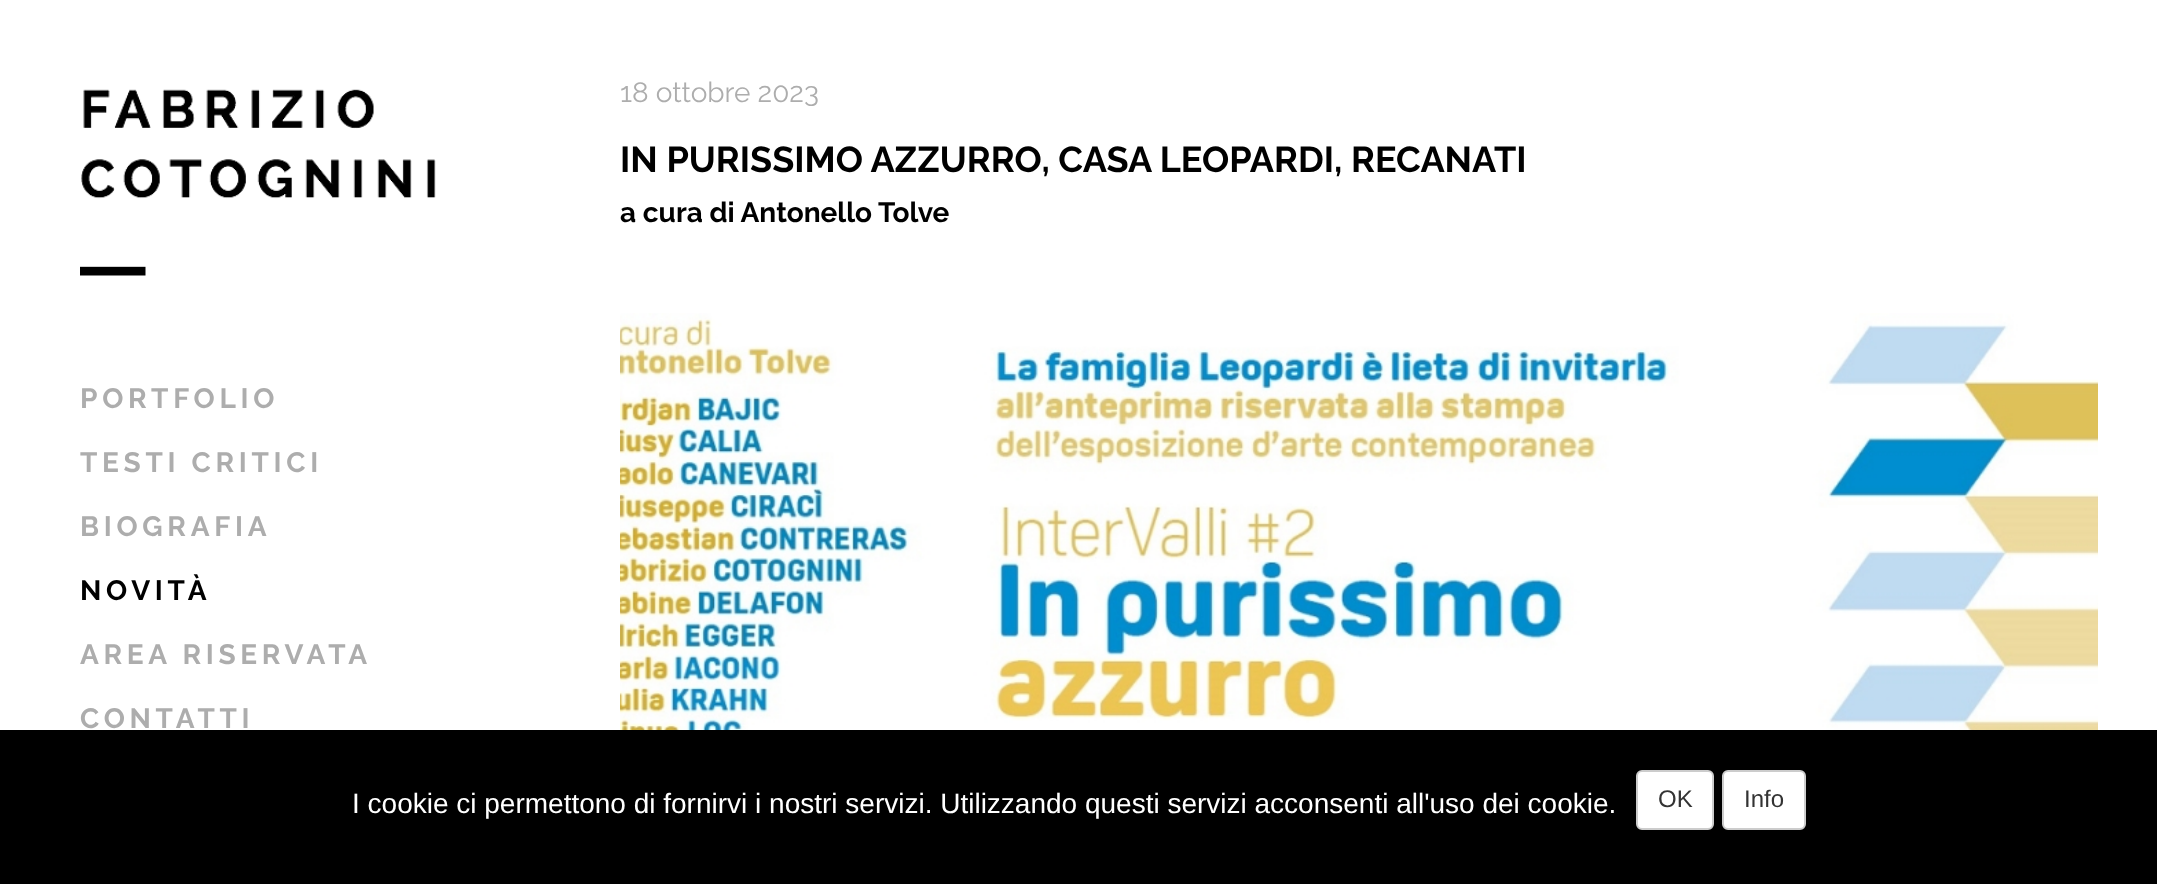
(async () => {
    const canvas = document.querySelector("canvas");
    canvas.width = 2157;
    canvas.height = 884;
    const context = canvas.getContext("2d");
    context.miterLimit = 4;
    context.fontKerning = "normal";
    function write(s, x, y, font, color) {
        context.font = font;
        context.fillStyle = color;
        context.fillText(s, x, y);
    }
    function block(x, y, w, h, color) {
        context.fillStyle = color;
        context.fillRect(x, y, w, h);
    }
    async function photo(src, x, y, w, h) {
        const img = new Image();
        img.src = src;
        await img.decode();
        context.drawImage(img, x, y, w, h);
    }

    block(0, 0, 2157, 884, "rgb(255, 255, 255)");
    write("18 ottobre 2023", 620, 102, "28px Raleway", "rgb(173, 173, 173)");
    write("IN PURISSIMO AZZURRO, CASA LEOPARDI, RECANATI", 620, 172, "bold 36px Raleway", "rgb(0, 0, 0)");
    write("a cura di Antonello Tolve", 620, 222, "bold 28px Raleway", "rgb(0, 0, 0)");
    await photo("media/1.png", 620, 313, 1478, 417);
    await photo("media/2.png", 80, 89, 356, 187);
    context.letterSpacing = "4.7px";
    write("PORTFOLIO", 80, 408, "bold 28px Raleway", "rgb(173, 173, 173)");
    write("TESTI CRITICI", 80, 472, "bold 28px Raleway", "rgb(173, 173, 173)");
    write("BIOGRAFIA", 80, 536, "bold 28px Raleway", "rgb(173, 173, 173)");
    write("NOVITÀ", 80, 600, "bold 28px Raleway", "rgb(0, 0, 0)");
    write("AREA RISERVATA", 80, 664, "bold 28px Raleway", "rgb(173, 173, 173)");
    write("CONTATTI", 80, 728, "bold 28px Raleway", "rgb(173, 173, 173)");
    block(0, 730, 2157, 154, "rgb(0, 0, 0)");
    context.letterSpacing = "0px";
    write("I cookie ci permettono di fornirvi i nostri servizi. Utilizzando questi servizi acconsenti all'uso dei cookie.", 352, 813, "28px Liberation Sans", "rgb(255, 255, 255)");
    context.beginPath();
    context.roundRect(1637, 771, 76, 58, 5);
    context.fill();
    context.strokeStyle = "rgb(204, 204, 204)";
    context.lineWidth = 2;
    context.stroke();
    write("OK", 1658, 807, "24px Liberation Sans", "rgb(51, 51, 51)");
    context.fillStyle = "rgb(255, 255, 255)";
    context.beginPath();
    context.roundRect(1723, 771, 82, 58, 5);
    context.fill();
    context.stroke();
    write("Info", 1744, 807, "24px Liberation Sans", "rgb(51, 51, 51)");
})();
